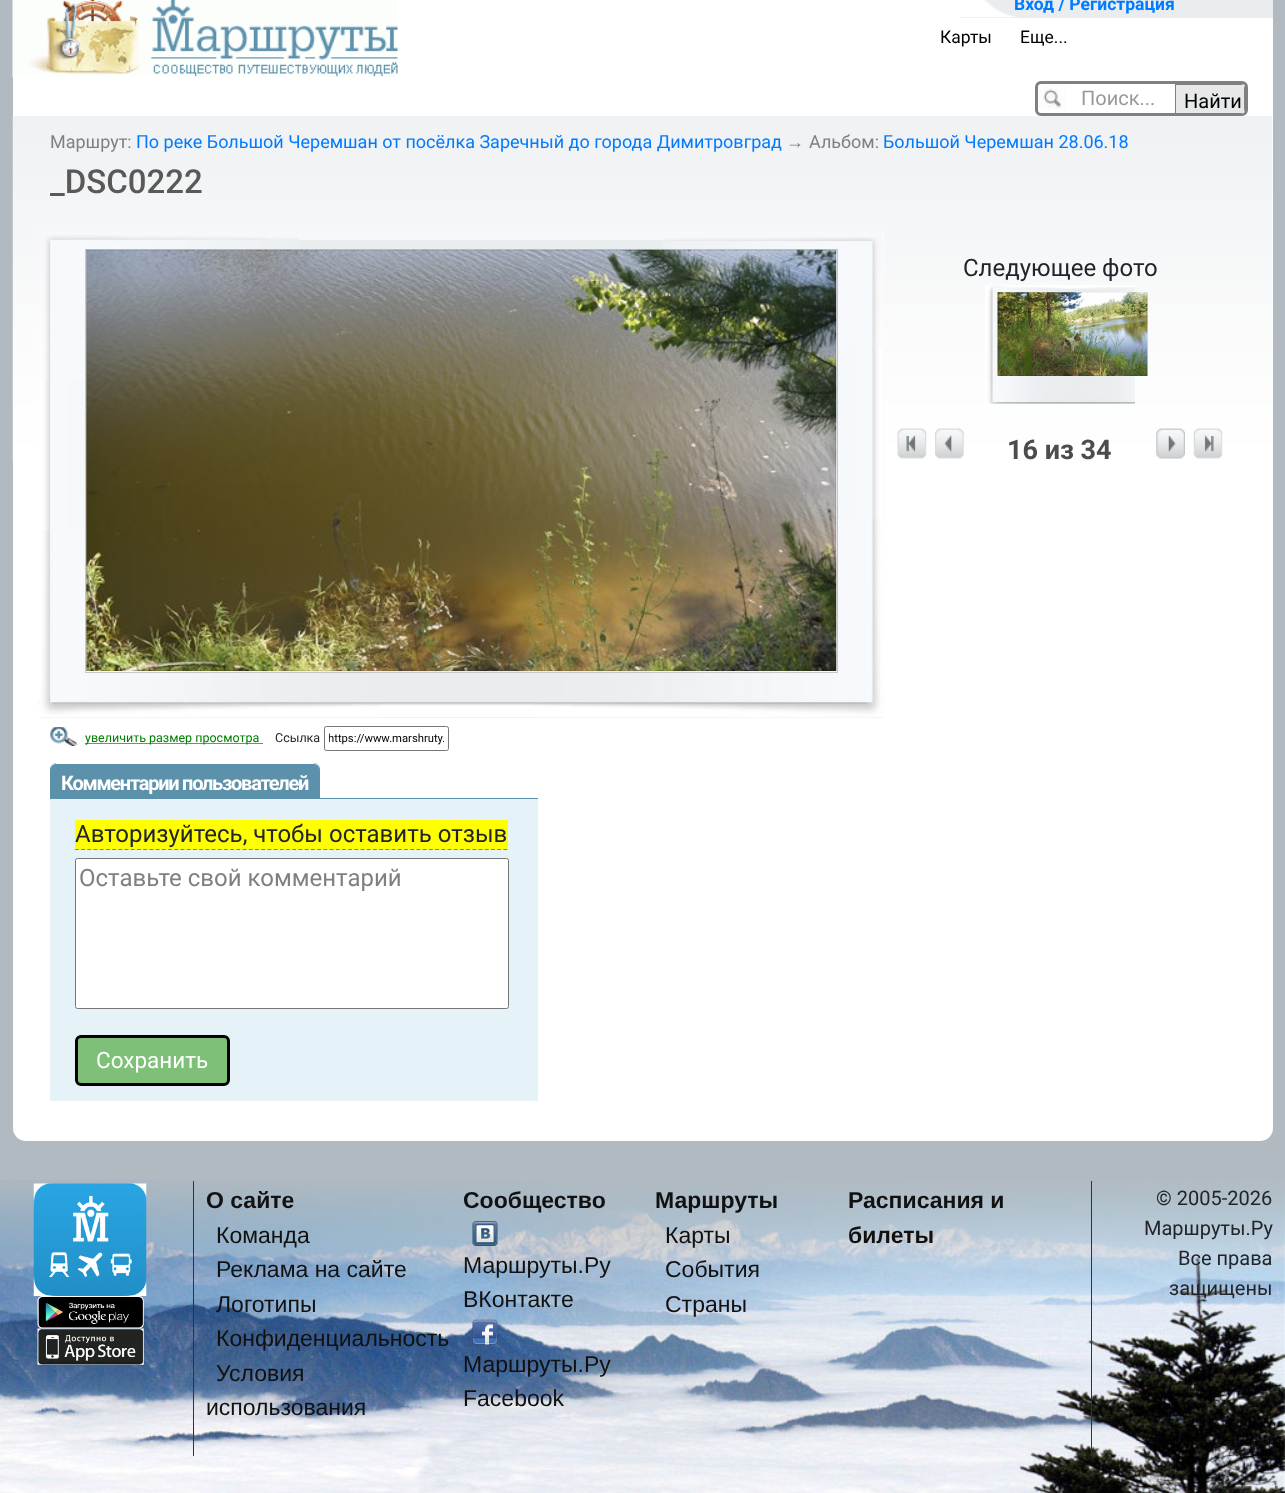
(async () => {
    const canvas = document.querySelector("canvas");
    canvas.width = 1285;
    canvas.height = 1493;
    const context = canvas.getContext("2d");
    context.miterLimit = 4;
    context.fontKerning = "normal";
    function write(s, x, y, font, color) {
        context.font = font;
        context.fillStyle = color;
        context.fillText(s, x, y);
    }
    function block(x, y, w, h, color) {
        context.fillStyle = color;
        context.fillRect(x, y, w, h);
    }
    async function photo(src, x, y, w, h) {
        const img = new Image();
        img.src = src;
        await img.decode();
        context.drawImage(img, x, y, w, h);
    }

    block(0, 0, 1285, 1493, "rgb(177, 186, 193)");
    block(13, 0, 1260, 116, "rgb(255, 255, 255)");
    await photo("media/1.png", 12, 0, 386, 78);
    block(960, 0, 313, 18, "rgb(234, 237, 239)");
    await photo("media/2.png", 960, 0, 58, 18);
    write("Вход / Регистрация", 1014, 10, "bold 17.5px Roboto", "rgb(0, 123, 255)");
    write("Карты", 940, 43, "17.5px Roboto", "rgb(0, 0, 0)");
    write("Еще...", 1020, 43, "17.5px Roboto", "rgb(0, 0, 0)");
    await photo("media/3.png", 1038, 85, 28, 24);
    context.beginPath();
    context.roundRect(1036.5, 82.5, 210, 32, 4.5);
    context.strokeStyle = "rgb(128, 128, 128)";
    context.lineWidth = 3;
    context.stroke();
    write("Поиск...", 1081, 105, "20px Roboto", "rgb(153, 153, 153)");
    context.fillStyle = "rgb(230, 232, 233)";
    context.beginPath();
    context.roundRect(1175, 84, 70, 30, [0, 4, 4, 0]);
    context.fill();
    context.fillStyle = "rgb(128, 128, 128)";
    context.beginPath();
    context.moveTo(1175, 84);
    context.lineTo(1175, 114);
    context.lineTo(1241, 114);
    context.lineTo(1244, 113);
    context.lineTo(1176, 113);
    context.lineTo(1176, 85);
    context.lineTo(1244, 85);
    context.lineTo(1241, 84);
    context.closePath();
    context.moveTo(1245, 88);
    context.lineTo(1244, 85);
    context.lineTo(1244, 113);
    context.bezierCurveTo(1246, 110, 1245, 92, 1245, 88);
    context.closePath();
    context.fill("evenodd");
    write("Найти", 1184, 108, "20px Roboto", "rgb(0, 0, 0)");
    context.fillStyle = "rgb(255, 255, 255)";
    context.beginPath();
    context.roundRect(13, 116, 1260, 1025, [0, 0, 13, 13]);
    context.fill();
    await photo("media/4.png", 12, 116, 1261, 345);
    write("Маршрут:", 50, 148, "18px Roboto", "rgb(128, 128, 128)");
    write("По реке Большой Черемшан от посёлка Заречный до города Димитровград", 136, 148, "18px Roboto", "rgb(0, 123, 255)");
    write("→", 786, 148, "18px Liberation Sans", "rgb(128, 128, 128)");
    write("Альбом:", 809, 148, "18px Roboto", "rgb(128, 128, 128)");
    write("Большой Черемшан 28.06.18", 883, 148, "18px Roboto", "rgb(0, 123, 255)");
    write("_DSC0222", 50, 193, "500 33px Roboto", "rgb(89, 89, 89)");
    write("Следующее фото", 963, 276, "24px Roboto", "rgb(33, 37, 41)");
    await photo("media/5.png", 985, 285, 150, 119);
    await photo("media/6.png", 997, 292, 151, 84);
    await photo("media/7.png", 897, 428, 30, 31);
    await photo("media/8.png", 935, 428, 29, 31);
    write("16 из 34", 1007, 459, "bold 27px Roboto", "rgb(76, 76, 76)");
    await photo("media/9.png", 1156, 428, 29, 31);
    await photo("media/10.png", 1193, 428, 30, 31);
    block(39, 231, 845, 487, "rgb(233, 237, 238)");
    await photo("media/11.png", 39, 379, 218, 339);
    await photo("media/12.png", 673, 231, 211, 487);
    block(39, 231, 844, 9, "rgb(247, 248, 249)");
    await photo("media/13.png", 38, 702, 846, 16);
    await photo("media/14.png", 39, 235, 260, 145);
    await photo("media/15.png", 663, 237, 220, 112);
    await photo("media/16.png", 39, 530, 344, 188);
    await photo("media/17.png", 534, 519, 350, 199);
    context.strokeStyle = "rgb(198, 199, 201)";
    context.lineWidth = 1;
    context.strokeRect(85.5, 249.5, 752, 423);
    await photo("media/18.png", 86, 249, 751, 422);
    await photo("media/19.png", 50, 727, 28, 19);
    block(85, 743, 178, 1, "rgb(92, 145, 171)");
    write("увеличить размер просмотра", 85, 742, "12.5px Roboto", "rgb(0, 128, 0)");
    write("Ссылка", 275, 742, "12.5px Roboto", "rgb(33, 37, 41)");
    context.beginPath();
    context.roundRect(324.5, 726.5, 124, 24, 2);
    context.strokeStyle = "rgb(118, 118, 118)";
    context.stroke();
    context.save();
    context.beginPath();
    context.rect(329, 730, 115, 18);
    context.clip();
    write("https://www.marshruty.", 328, 742, "11.25px Roboto", "rgb(0, 0, 0)");
    context.restore();
    await photo("media/20.png", 50, 763, 7, 35);
    block(50, 798, 488, 1, "rgb(92, 145, 171)");
    block(56, 764, 264, 34, "rgb(92, 145, 171)");
    await photo("media/21.png", 313, 763, 7, 7);
    context.letterSpacing = "-1.25px";
    write("Комментарии пользователей", 61, 790, "bold 20px Roboto", "rgb(255, 255, 255)");
    block(50, 799, 488, 302, "rgb(229, 242, 247)");
    block(75, 820, 433, 30, "rgb(255, 255, 0)");
    context.letterSpacing = "0px";
    write("Авторизуйтесь, чтобы оставить отзыв", 75, 842, "24px Roboto", "rgb(33, 37, 41)");
    context.beginPath();
    context.moveTo(75, 849.5);
    context.lineTo(507.5, 849.5);
    context.strokeStyle = "rgb(128, 128, 128)";
    context.lineWidth = 1.2;
    context.setLineDash([3.75, 2.46]);
    context.stroke();
    context.fillStyle = "rgb(255, 255, 255)";
    context.beginPath();
    context.roundRect(75.5, 858.5, 433, 150, 2);
    context.fill();
    context.strokeStyle = "rgb(118, 118, 118)";
    context.lineWidth = 1;
    context.setLineDash([]);
    context.stroke();
    write("Оставьте свой комментарий", 79, 886, "24px Roboto", "rgb(128, 128, 128)");
    context.fillStyle = "rgb(127, 192, 120)";
    context.beginPath();
    context.roundRect(76.5, 1036.5, 152, 48, 4.5);
    context.fill();
    context.strokeStyle = "rgb(0, 0, 0)";
    context.lineWidth = 3;
    context.stroke();
    write("Сохранить", 96, 1068, "22.5px Roboto", "rgb(255, 255, 255)");
    await photo("media/22.png", 0, 1180, 1285, 313);
    block(193, 1181, 1, 275, "rgb(51, 51, 51)");
    await photo("media/23.png", 33, 1183, 114, 113);
    await photo("media/24.png", 37, 1296, 107, 33);
    await photo("media/25.png", 37, 1328, 107, 37);
    write("О сайте", 206, 1208, "bold 23px Liberation Sans", "rgb(17, 17, 17)");
    write("Команда", 216, 1243, "23px Liberation Sans", "rgb(17, 17, 17)");
    write("Реклама на сайте", 216, 1277, "23px Liberation Sans", "rgb(17, 17, 17)");
    write("Логотипы", 216, 1312, "23px Liberation Sans", "rgb(17, 17, 17)");
    write("Конфиденциальность", 216, 1346, "23px Liberation Sans", "rgb(17, 17, 17)");
    write("Условия", 216, 1381, "23px Liberation Sans", "rgb(17, 17, 17)");
    write("использования", 206, 1415, "23px Liberation Sans", "rgb(17, 17, 17)");
    write("Сообщество", 463, 1208, "bold 23px Liberation Sans", "rgb(17, 17, 17)");
    await photo("media/26.png", 472, 1221, 26, 25);
    write("Маршруты.Ру", 463, 1273, "23px Liberation Sans", "rgb(17, 17, 17)");
    write("ВКонтакте", 463, 1307, "23px Liberation Sans", "rgb(17, 17, 17)");
    await photo("media/27.png", 472, 1319, 26, 26);
    write("Маршруты.Ру", 463, 1372, "23px Liberation Sans", "rgb(17, 17, 17)");
    write("Facebook", 463, 1406, "23px Liberation Sans", "rgb(17, 17, 17)");
    write("Маршруты", 655, 1208, "bold 23px Liberation Sans", "rgb(17, 17, 17)");
    write("Карты", 665, 1243, "23px Liberation Sans", "rgb(17, 17, 17)");
    write("События", 665, 1277, "23px Liberation Sans", "rgb(17, 17, 17)");
    write("Страны", 665, 1312, "23px Liberation Sans", "rgb(17, 17, 17)");
    write("Расписания и", 848, 1208, "bold 23px Liberation Sans", "rgb(17, 17, 17)");
    write("билеты", 848, 1243, "bold 23px Liberation Sans", "rgb(17, 17, 17)");
    block(1091, 1181, 1, 275, "rgb(51, 51, 51)");
    write("© 2005-2026", 1156, 1205, "20px Roboto", "rgb(33, 37, 41)");
    write("Маршруты.Ру", 1144, 1235, "20px Roboto", "rgb(33, 37, 41)");
    write("Все права", 1178, 1265, "20px Roboto", "rgb(33, 37, 41)");
    write("защищены", 1169, 1295, "20px Roboto", "rgb(33, 37, 41)");
})();
